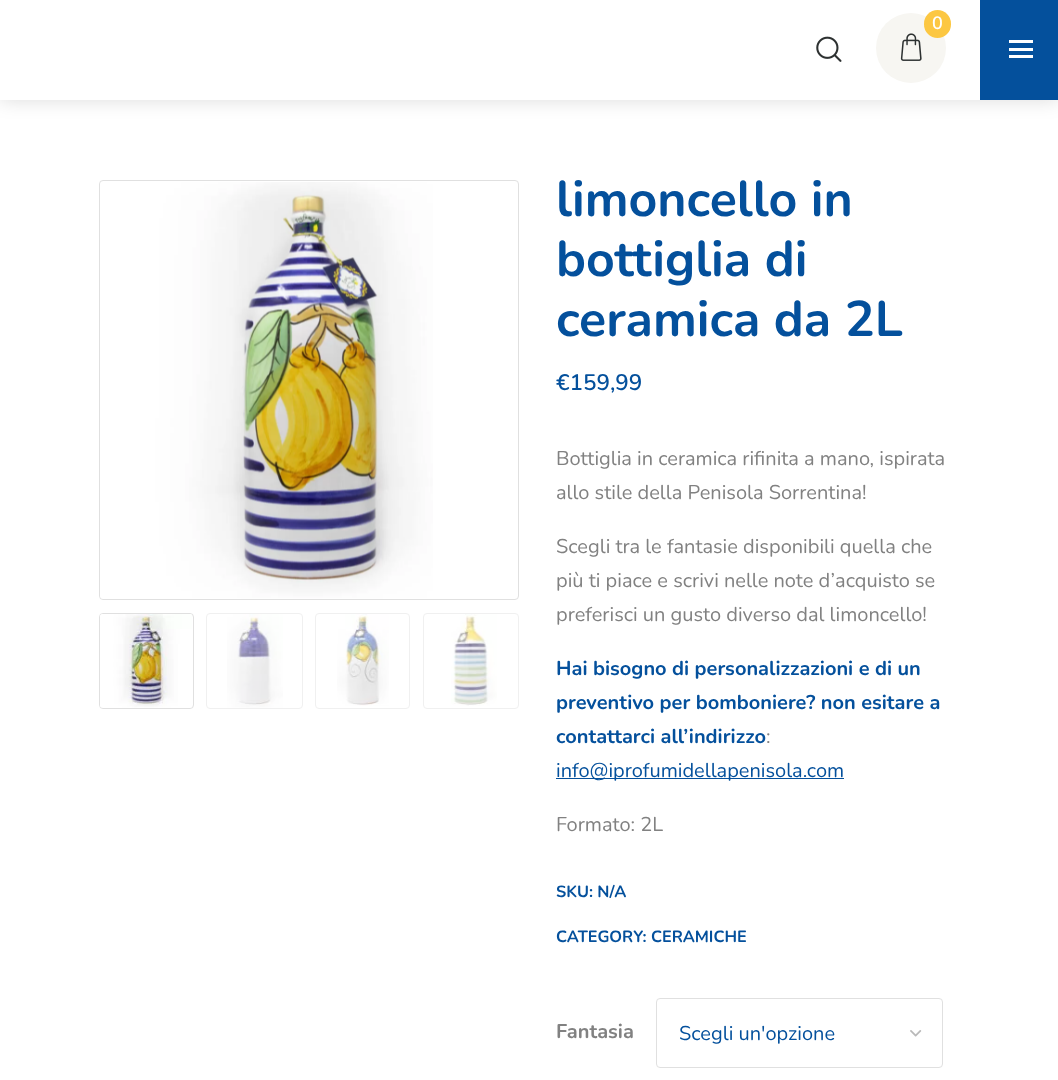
(async () => {
    const canvas = document.querySelector("canvas");
    canvas.width = 1058;
    canvas.height = 1080;
    const context = canvas.getContext("2d");
    context.miterLimit = 4;
    context.fontKerning = "normal";
    function write(s, x, y, font, color) {
        context.font = font;
        context.fillStyle = color;
        context.fillText(s, x, y);
    }
    function block(x, y, w, h, color) {
        context.fillStyle = color;
        context.fillRect(x, y, w, h);
    }
    function card(x, y, w, h, r, color) {
        context.fillStyle = color;
        context.beginPath();
        context.roundRect(x, y, w, h, r);
        context.fill();
    }
    async function photo(src, x, y, w, h) {
        const img = new Image();
        img.src = src;
        await img.decode();
        context.drawImage(img, x, y, w, h);
    }

    block(0, 0, 1058, 1080, "rgb(255, 255, 255)");
    context.fillStyle = "rgba(0, 0, 0, 0.14)";
    context.filter = "blur(9.5px)";
    context.beginPath();
    context.rect(0, 0, 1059, 100);
    context.fill();
    context.filter = "none";
    block(0, 0, 980, 100, "rgb(255, 255, 255)");
    context.fillStyle = "rgb(247, 246, 242)";
    context.beginPath();
    context.arc(911, 48, 35, 0, Math.PI * 2);
    context.fill();
    card(924, 10, 27, 28, 13.5, "rgb(252, 199, 66)");
    write("0", 932, 29, "600 18px Nunito", "rgb(255, 255, 255)");
    await photo("media/1.png", 900, 33, 22, 28);
    block(980, 0, 78, 100, "rgb(4, 80, 156)");
    block(1009, 40, 24, 3, "rgb(255, 255, 255)");
    block(1009, 48, 24, 3, "rgb(255, 255, 255)");
    block(1009, 55, 24, 3, "rgb(255, 255, 255)");
    await photo("media/2.png", 816, 36, 26, 26);
    context.beginPath();
    context.roundRect(99.5, 180.5, 419, 419, 3.5);
    context.strokeStyle = "rgb(224, 224, 224)";
    context.stroke();
    await photo("media/3.png", 100, 182, 333, 417);
    context.beginPath();
    context.roundRect(99.5, 613.5, 94, 95, 3.5);
    context.stroke();
    await photo("media/4.png", 100, 614, 92, 94);
    context.beginPath();
    context.roundRect(206.5, 613.5, 96, 95, 3.5);
    context.strokeStyle = "rgb(240, 240, 240)";
    context.stroke();
    await photo("media/5.png", 227, 614, 56, 94);
    context.beginPath();
    context.roundRect(315.5, 613.5, 94, 95, 3.5);
    context.stroke();
    await photo("media/6.png", 337, 614, 52, 92);
    context.beginPath();
    context.roundRect(423.5, 613.5, 95, 95, 3.5);
    context.stroke();
    await photo("media/7.png", 451, 614, 46, 92);
    write("limoncello in", 556, 216, "bold 50px Nunito", "rgb(4, 80, 156)");
    write("bottiglia di", 556, 276, "bold 50px Nunito", "rgb(4, 80, 156)");
    write("ceramica da 2L", 556, 336, "bold 50px Nunito", "rgb(4, 80, 156)");
    write("€159,99", 556, 390, "600 22.5px Nunito", "rgb(4, 80, 156)");
    write("Bottiglia in ceramica rifinita a mano, ispirata", 556, 465, "20px Nunito", "rgb(129, 129, 129)");
    write("allo stile della Penisola Sorrentina!", 556, 499, "20px Nunito", "rgb(129, 129, 129)");
    write("Scegli tra le fantasie disponibili quella che", 556, 553, "20px Nunito", "rgb(129, 129, 129)");
    write("più ti piace e scrivi nelle note d’acquisto se", 556, 587, "20px Nunito", "rgb(129, 129, 129)");
    write("preferisci un gusto diverso dal limoncello!", 556, 621, "20px Nunito", "rgb(129, 129, 129)");
    write("Hai bisogno di personalizzazioni e di un", 556, 675, "bold 20px Nunito", "rgb(4, 80, 156)");
    write("preventivo per bomboniere? non esitare a", 556, 709, "bold 20px Nunito", "rgb(4, 80, 156)");
    write("contattarci all’indirizzo", 556, 743, "bold 20px Nunito", "rgb(4, 80, 156)");
    write(":", 766, 743, "20px Nunito", "rgb(129, 129, 129)");
    block(556, 778, 288, 1, "rgb(4, 80, 156)");
    write("info@iprofumidellapenisola.com", 556, 777, "20px Nunito", "rgb(4, 80, 156)");
    write("Formato: 2L", 556, 831, "20px Nunito", "rgb(129, 129, 129)");
    write("SKU: N/A", 556, 897, "bold 16.25px Nunito", "rgb(4, 80, 156)");
    write("CATEGORY: CERAMICHE", 556, 942, "bold 16.25px Nunito", "rgb(4, 80, 156)");
    write("Fantasia", 556, 1038, "bold 20px Nunito", "rgb(129, 129, 129)");
    await photo("media/8.png", 910, 1030, 12, 7);
    context.beginPath();
    context.roundRect(656.5, 998.5, 286, 69, 3.5);
    context.strokeStyle = "rgb(224, 224, 224)";
    context.stroke();
    write("Scegli un'opzione", 679, 1040, "20px Nunito", "rgb(4, 80, 156)");
})();
